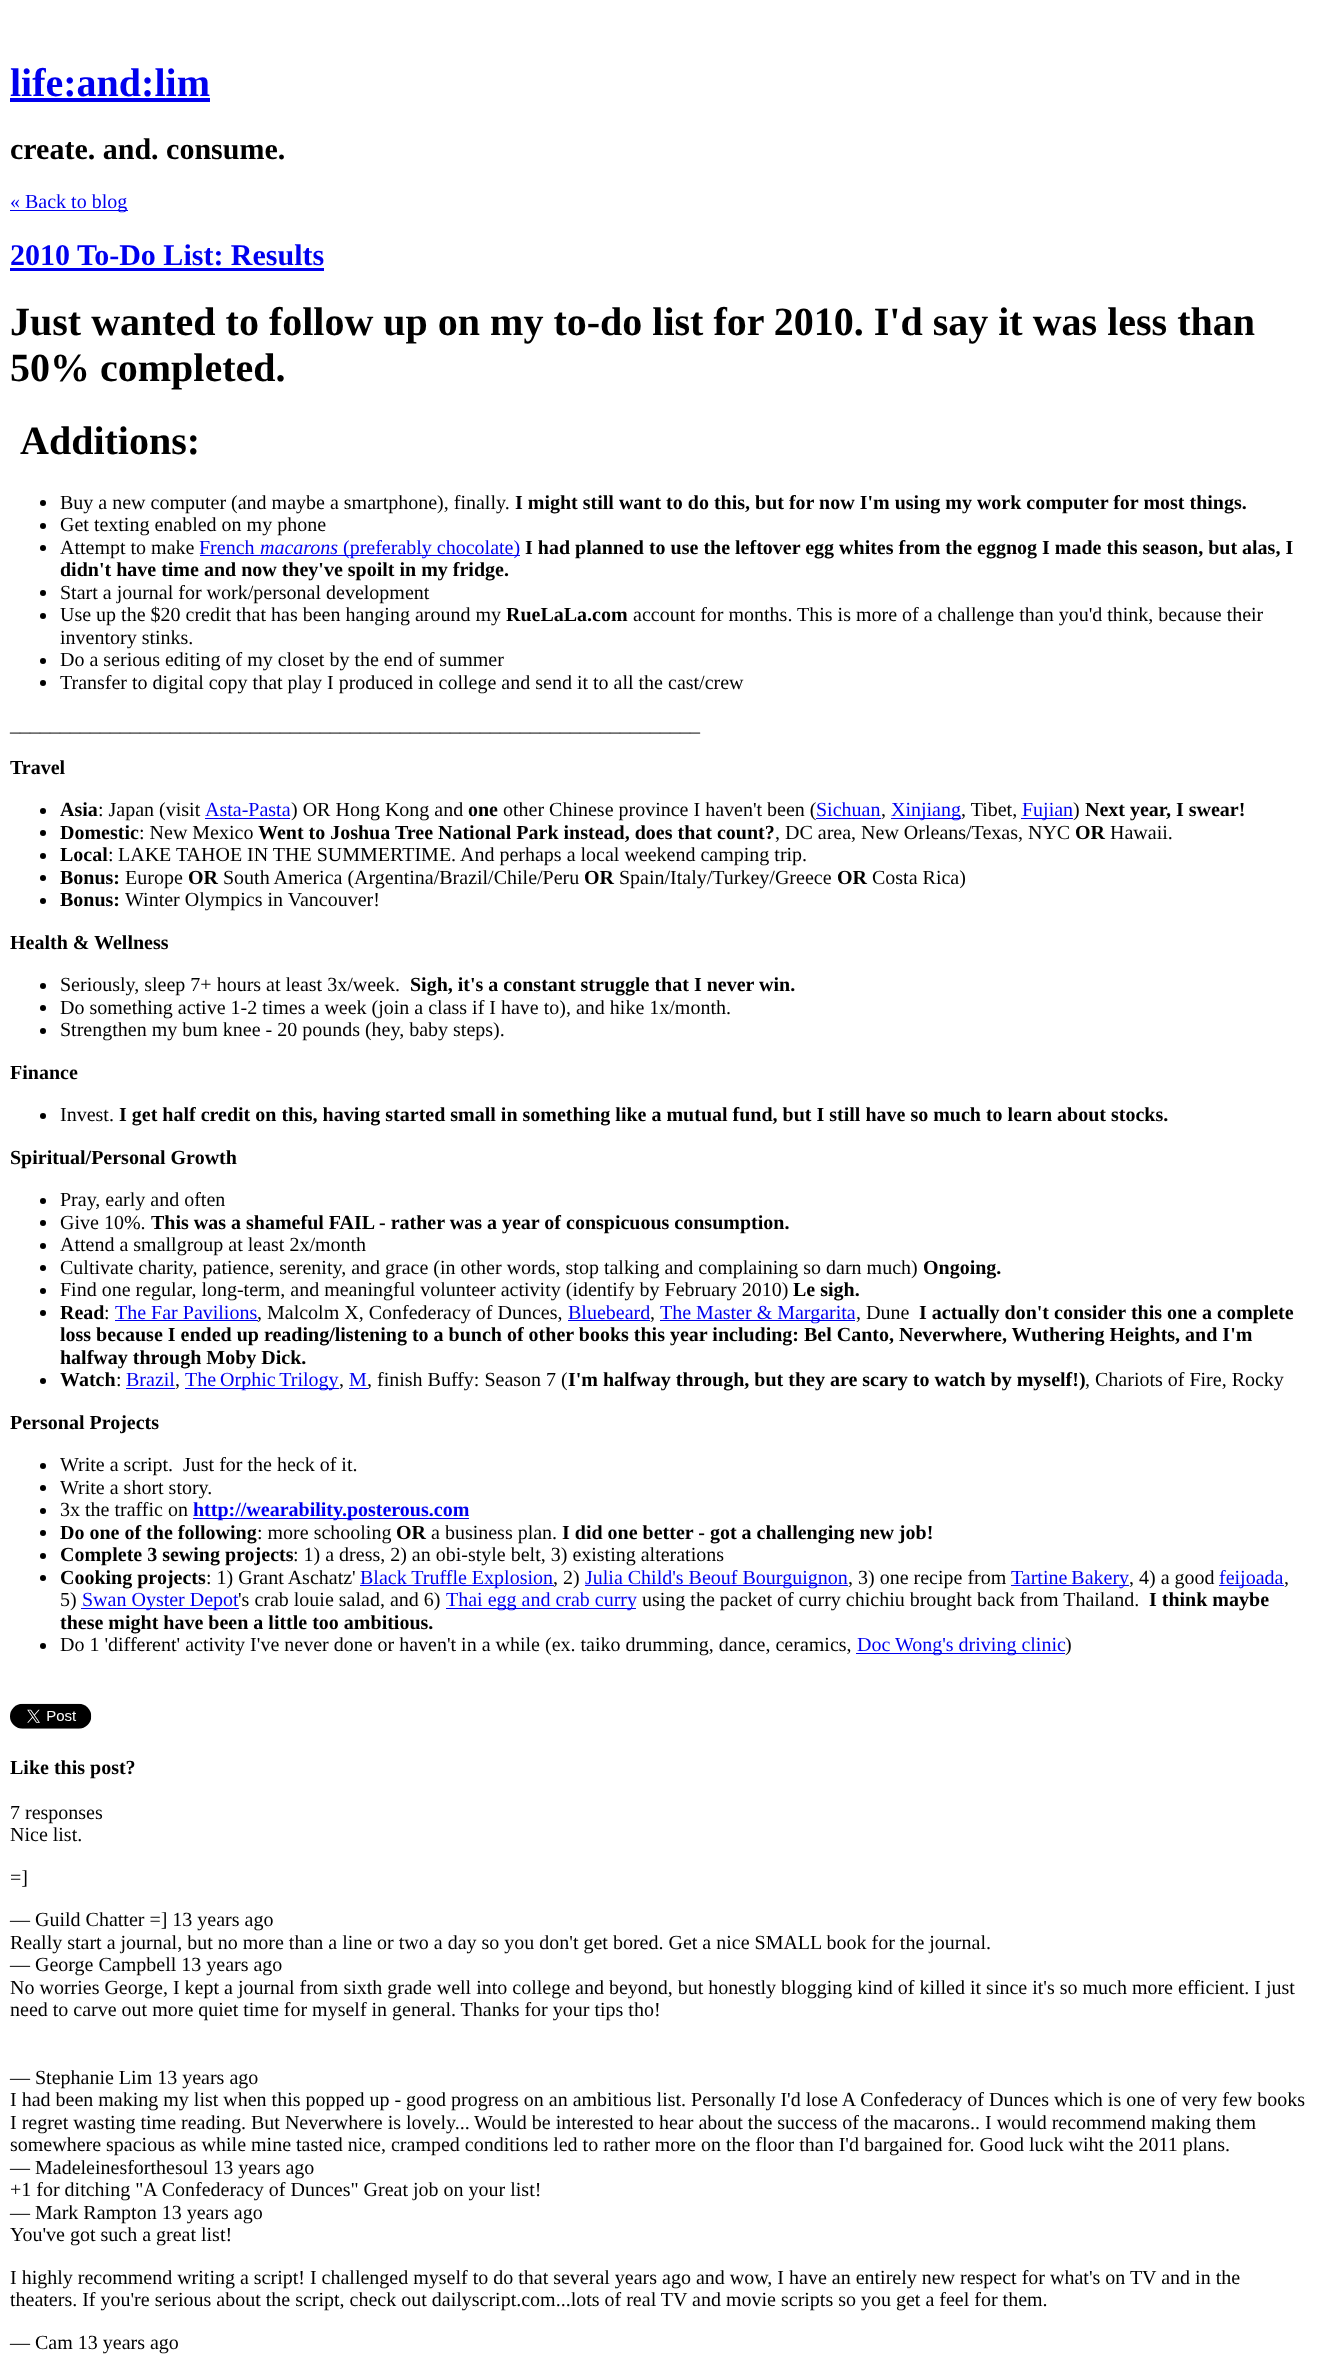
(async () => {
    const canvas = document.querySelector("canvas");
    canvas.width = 1317;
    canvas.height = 2356;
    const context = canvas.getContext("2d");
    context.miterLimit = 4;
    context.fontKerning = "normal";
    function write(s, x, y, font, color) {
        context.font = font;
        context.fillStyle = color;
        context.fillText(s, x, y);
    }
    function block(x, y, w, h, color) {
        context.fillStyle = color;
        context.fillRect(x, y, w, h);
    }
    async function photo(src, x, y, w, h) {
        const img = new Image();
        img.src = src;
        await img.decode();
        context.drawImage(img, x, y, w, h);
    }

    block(0, 0, 1317, 2356, "rgb(255, 255, 255)");
    write("life:and:lim", 10, 96, "bold 40px Liberation Serif", "rgb(0, 0, 238)");
    block(10, 98, 200, 4, "rgb(0, 0, 238)");
    write("create. and. consume.", 10, 159, "bold 30px Liberation Serif", "rgb(0, 0, 0)");
    block(10, 210, 118, 1, "rgb(0, 0, 238)");
    write("« Back to blog", 10, 208, "20px Liberation Serif", "rgb(0, 0, 238)");
    write("2010 To-Do List: Results", 10, 265, "bold 30px Liberation Serif", "rgb(0, 0, 238)");
    block(10, 268, 314, 3, "rgb(0, 0, 238)");
    write("Just wanted to follow up on my to-do list for 2010. I'd say it was less than", 10, 335, "bold 40px Liberation Serif", "rgb(0, 0, 0)");
    write("50% completed.", 10, 381, "bold 40px Liberation Serif", "rgb(0, 0, 0)");
    write("Additions:", 20, 454, "bold 40px Liberation Serif", "rgb(0, 0, 0)");
    context.beginPath();
    context.arc(43, 503, 3, 0, Math.PI * 2);
    context.fill();
    write("Buy a new computer (and maybe a smartphone), finally.", 60, 509, "20px Liberation Serif", "rgb(0, 0, 0)");
    write("I might still want to do this, but for now I'm using my work computer for most things.", 515, 509, "bold 20px Liberation Serif", "rgb(0, 0, 0)");
    context.beginPath();
    context.arc(43, 526, 3, 0, Math.PI * 2);
    context.fill();
    write("Get texting enabled on my phone", 60, 531, "20px Liberation Serif", "rgb(0, 0, 0)");
    context.beginPath();
    context.arc(43, 548, 3, 0, Math.PI * 2);
    context.fill();
    write("Attempt to make", 60, 554, "20px Liberation Serif", "rgb(0, 0, 0)");
    write("French", 199, 554, "20px Liberation Serif", "rgb(0, 0, 238)");
    write("macarons", 260, 554, "italic 20px Liberation Serif", "rgb(0, 0, 238)");
    block(200, 555, 320, 1, "rgb(0, 0, 238)");
    write("(preferably chocolate)", 343, 554, "20px Liberation Serif", "rgb(0, 0, 238)");
    write("I had planned to use the leftover egg whites from the eggnog I made this season, but alas, I", 525, 554, "bold 20px Liberation Serif", "rgb(0, 0, 0)");
    write("didn't have time and now they've spoilt in my fridge.", 60, 576, "bold 20px Liberation Serif", "rgb(0, 0, 0)");
    context.beginPath();
    context.arc(43, 593, 3, 0, Math.PI * 2);
    context.fill();
    write("Start a journal for work/personal development", 60, 599, "20px Liberation Serif", "rgb(0, 0, 0)");
    context.beginPath();
    context.arc(43, 616, 3, 0, Math.PI * 2);
    context.fill();
    write("Use up the $20 credit that has been hanging around my", 60, 621, "20px Liberation Serif", "rgb(0, 0, 0)");
    write("RueLaLa.com", 506, 621, "bold 20px Liberation Serif", "rgb(0, 0, 0)");
    write("account for months. This is more of a challenge than you'd think, because their", 633, 621, "20px Liberation Serif", "rgb(0, 0, 0)");
    write("inventory stinks.", 60, 644, "20px Liberation Serif", "rgb(0, 0, 0)");
    context.beginPath();
    context.arc(43, 661, 3, 0, Math.PI * 2);
    context.fill();
    write("Do a serious editing of my closet by the end of summer", 60, 666, "20px Liberation Serif", "rgb(0, 0, 0)");
    context.beginPath();
    context.arc(43, 683, 3, 0, Math.PI * 2);
    context.fill();
    write("Transfer to digital copy that play I produced in college and send it to all the cast/crew", 60, 689, "20px Liberation Serif", "rgb(0, 0, 0)");
    write("_____________________________________________________________________", 10, 731, "20px Liberation Serif", "rgb(0, 0, 0)");
    write("Travel", 10, 774, "bold 20px Liberation Serif", "rgb(0, 0, 0)");
    context.beginPath();
    context.arc(43, 811, 3, 0, Math.PI * 2);
    context.fill();
    write("Asia", 60, 816, "bold 20px Liberation Serif", "rgb(0, 0, 0)");
    write(": Japan (visit", 98, 816, "20px Liberation Serif", "rgb(0, 0, 0)");
    write("Asta-Pasta", 205, 816, "20px Liberation Serif", "rgb(0, 0, 238)");
    write(") OR Hong Kong and", 291, 816, "20px Liberation Serif", "rgb(0, 0, 0)");
    block(205, 818, 85, 1, "rgb(0, 0, 238)");
    write("one", 468, 816, "bold 20px Liberation Serif", "rgb(0, 0, 0)");
    write("other Chinese province I haven't been (", 503, 816, "20px Liberation Serif", "rgb(0, 0, 0)");
    write("Sichuan", 816, 816, "20px Liberation Serif", "rgb(0, 0, 238)");
    block(891, 818, 70, 1, "rgb(0, 0, 238)");
    write("Xinjiang", 891, 816, "20px Liberation Serif", "rgb(0, 0, 238)");
    write(", Tibet,", 961, 816, "20px Liberation Serif", "rgb(0, 0, 0)");
    block(1021, 818, 52, 1, "rgb(0, 0, 238)");
    write("Fujian", 1022, 816, "20px Liberation Serif", "rgb(0, 0, 238)");
    write(")", 1073, 816, "20px Liberation Serif", "rgb(0, 0, 0)");
    write("Next year, I swear!", 1085, 816, "bold 20px Liberation Serif", "rgb(0, 0, 0)");
    write(",", 881, 816, "20px Liberation Serif", "rgb(0, 0, 0)");
    block(816, 818, 65, 1, "rgb(0, 0, 238)");
    context.fillStyle = "rgb(0, 0, 0)";
    context.beginPath();
    context.arc(43, 833, 3, 0, Math.PI * 2);
    context.fill();
    write("Domestic", 60, 839, "bold 20px Liberation Serif", "rgb(0, 0, 0)");
    write(": New Mexico", 139, 839, "20px Liberation Serif", "rgb(0, 0, 0)");
    write("Went to Joshua Tree National Park instead, does that count?", 258, 839, "bold 20px Liberation Serif", "rgb(0, 0, 0)");
    write(", DC area, New Orleans/Texas, NYC", 775, 839, "20px Liberation Serif", "rgb(0, 0, 0)");
    write("OR", 1075, 839, "bold 20px Liberation Serif", "rgb(0, 0, 0)");
    write("Hawaii.", 1110, 839, "20px Liberation Serif", "rgb(0, 0, 0)");
    context.beginPath();
    context.arc(43, 856, 3, 0, Math.PI * 2);
    context.fill();
    write("Local", 60, 861, "bold 20px Liberation Serif", "rgb(0, 0, 0)");
    write(":", 108, 861, "20px Liberation Serif", "rgb(0, 0, 0)");
    write("LAKE TAHOE IN THE SUMMERTIME.", 118, 861, "20px Liberation Serif", "rgb(0, 0, 0)");
    write("And perhaps a local weekend camping trip.", 460, 861, "20px Liberation Serif", "rgb(0, 0, 0)");
    context.beginPath();
    context.arc(43, 878, 3, 0, Math.PI * 2);
    context.fill();
    write("Bonus:", 60, 884, "bold 20px Liberation Serif", "rgb(0, 0, 0)");
    write("Europe", 125, 884, "20px Liberation Serif", "rgb(0, 0, 0)");
    write("OR", 188, 884, "bold 20px Liberation Serif", "rgb(0, 0, 0)");
    write("South America (Argentina/Brazil/Chile/Peru", 223, 884, "20px Liberation Serif", "rgb(0, 0, 0)");
    write("OR", 584, 884, "bold 20px Liberation Serif", "rgb(0, 0, 0)");
    write("Spain/Italy/Turkey/Greece", 619, 884, "20px Liberation Serif", "rgb(0, 0, 0)");
    write("OR", 837, 884, "bold 20px Liberation Serif", "rgb(0, 0, 0)");
    write("Costa Rica)", 872, 884, "20px Liberation Serif", "rgb(0, 0, 0)");
    context.beginPath();
    context.arc(43, 901, 3, 0, Math.PI * 2);
    context.fill();
    write("Bonus:", 60, 906, "bold 20px Liberation Serif", "rgb(0, 0, 0)");
    write("Winter Olympics in Vancouver!", 125, 906, "20px Liberation Serif", "rgb(0, 0, 0)");
    write("Health & Wellness", 10, 949, "bold 20px Liberation Serif", "rgb(0, 0, 0)");
    context.beginPath();
    context.arc(43, 986, 3, 0, Math.PI * 2);
    context.fill();
    write("Seriously, sleep 7+ hours at least 3x/week.", 60, 991, "20px Liberation Serif", "rgb(0, 0, 0)");
    write("Sigh, it's a constant struggle that I never win.", 410, 991, "bold 20px Liberation Serif", "rgb(0, 0, 0)");
    context.beginPath();
    context.arc(43, 1008, 3, 0, Math.PI * 2);
    context.fill();
    write("Do something active 1-2 times a week (join a class if I have to), and hike 1x/month.", 60, 1014, "20px Liberation Serif", "rgb(0, 0, 0)");
    context.beginPath();
    context.arc(43, 1031, 3, 0, Math.PI * 2);
    context.fill();
    write("Strengthen my bum knee - 20 pounds (hey, baby steps).", 60, 1036, "20px Liberation Serif", "rgb(0, 0, 0)");
    write("Finance", 10, 1079, "bold 20px Liberation Serif", "rgb(0, 0, 0)");
    context.beginPath();
    context.arc(43, 1116, 3, 0, Math.PI * 2);
    context.fill();
    write("Invest.", 60, 1121, "20px Liberation Serif", "rgb(0, 0, 0)");
    write("I get half credit on this, having started small in something like a mutual fund, but I still have so much to learn about stocks.", 119, 1121, "bold 20px Liberation Serif", "rgb(0, 0, 0)");
    write("Spiritual/Personal Growth", 10, 1164, "bold 20px Liberation Serif", "rgb(0, 0, 0)");
    context.beginPath();
    context.arc(43, 1201, 3, 0, Math.PI * 2);
    context.fill();
    write("Pray, early and often", 60, 1206, "20px Liberation Serif", "rgb(0, 0, 0)");
    context.beginPath();
    context.arc(43, 1223, 3, 0, Math.PI * 2);
    context.fill();
    write("Give 10%.", 60, 1229, "20px Liberation Serif", "rgb(0, 0, 0)");
    write("This was a shameful FAIL - rather was a year of conspicuous consumption.", 151, 1229, "bold 20px Liberation Serif", "rgb(0, 0, 0)");
    context.beginPath();
    context.arc(43, 1246, 3, 0, Math.PI * 2);
    context.fill();
    write("Attend a smallgroup at least 2x/month", 60, 1251, "20px Liberation Serif", "rgb(0, 0, 0)");
    context.beginPath();
    context.arc(43, 1268, 3, 0, Math.PI * 2);
    context.fill();
    write("Cultivate charity, patience, serenity, and grace (in other words, stop talking and complaining so darn much)", 60, 1274, "20px Liberation Serif", "rgb(0, 0, 0)");
    write("Ongoing.", 923, 1274, "bold 20px Liberation Serif", "rgb(0, 0, 0)");
    context.beginPath();
    context.arc(43, 1291, 3, 0, Math.PI * 2);
    context.fill();
    write("Find one regular, long-term, and meaningful volunteer activity (identify by February 2010)", 60, 1296, "20px Liberation Serif", "rgb(0, 0, 0)");
    write("Le sigh.", 793, 1296, "bold 20px Liberation Serif", "rgb(0, 0, 0)");
    context.beginPath();
    context.arc(43, 1313, 3, 0, Math.PI * 2);
    context.fill();
    write("Read", 60, 1319, "bold 20px Liberation Serif", "rgb(0, 0, 0)");
    write(":", 104, 1319, "20px Liberation Serif", "rgb(0, 0, 0)");
    write("The Far Pavilions", 115, 1319, "20px Liberation Serif", "rgb(0, 0, 238)");
    block(115, 1320, 143, 1, "rgb(0, 0, 238)");
    write(", Malcolm X, Confederacy of Dunces,", 257, 1319, "20px Liberation Serif", "rgb(0, 0, 0)");
    write("Bluebeard", 568, 1319, "20px Liberation Serif", "rgb(0, 0, 238)");
    block(660, 1320, 195, 1, "rgb(0, 0, 238)");
    write("The Master & Margarita", 660, 1319, "20px Liberation Serif", "rgb(0, 0, 238)");
    write(", Dune", 856, 1319, "20px Liberation Serif", "rgb(0, 0, 0)");
    write("I actually don't consider this one a complete", 919, 1319, "bold 20px Liberation Serif", "rgb(0, 0, 0)");
    write(",", 650, 1319, "20px Liberation Serif", "rgb(0, 0, 0)");
    block(568, 1320, 82, 1, "rgb(0, 0, 238)");
    write("loss because I ended up reading/listening to a bunch of other books this year including: Bel Canto, Neverwhere, Wuthering Heights, and I'm", 60, 1341, "bold 20px Liberation Serif", "rgb(0, 0, 0)");
    write("halfway through Moby Dick.", 60, 1364, "bold 20px Liberation Serif", "rgb(0, 0, 0)");
    context.beginPath();
    context.arc(43, 1381, 3, 0, Math.PI * 2);
    context.fill();
    write("Watch", 60, 1386, "bold 20px Liberation Serif", "rgb(0, 0, 0)");
    write(":", 116, 1386, "20px Liberation Serif", "rgb(0, 0, 0)");
    write("Brazil", 126, 1386, "20px Liberation Serif", "rgb(0, 0, 238)");
    block(185, 1388, 154, 1, "rgb(0, 0, 238)");
    context.wordSpacing = "-1px";
    write("The Orphic Trilogy", 185, 1386, "20px Liberation Serif", "rgb(0, 0, 238)");
    context.wordSpacing = "0px";
    write("M", 349, 1386, "20px Liberation Serif", "rgb(0, 0, 238)");
    block(349, 1388, 19, 1, "rgb(0, 0, 238)");
    write(", finish Buffy: Season 7 (", 367, 1386, "20px Liberation Serif", "rgb(0, 0, 0)");
    write("I'm halfway through, but they are scary to watch by myself!)", 568, 1386, "bold 20px Liberation Serif", "rgb(0, 0, 0)");
    write(", Chariots of Fire, Rocky", 1085, 1386, "20px Liberation Serif", "rgb(0, 0, 0)");
    write(",", 175, 1386, "20px Liberation Serif", "rgb(0, 0, 0)");
    block(126, 1388, 49, 1, "rgb(0, 0, 238)");
    write(",", 339, 1386, "20px Liberation Serif", "rgb(0, 0, 0)");
    write("Personal Projects", 10, 1429, "bold 20px Liberation Serif", "rgb(0, 0, 0)");
    context.beginPath();
    context.arc(43, 1466, 3, 0, Math.PI * 2);
    context.fill();
    write("Write a script.  Just for the heck of it.", 60, 1471, "20px Liberation Serif", "rgb(0, 0, 0)");
    context.beginPath();
    context.arc(43, 1488, 3, 0, Math.PI * 2);
    context.fill();
    write("Write a short story.", 60, 1494, "20px Liberation Serif", "rgb(0, 0, 0)");
    context.beginPath();
    context.arc(43, 1511, 3, 0, Math.PI * 2);
    context.fill();
    write("3x the traffic on", 60, 1516, "20px Liberation Serif", "rgb(0, 0, 0)");
    block(193, 1518, 276, 1, "rgb(0, 0, 238)");
    write("http://wearability.posterous.com", 193, 1516, "bold 20px Liberation Serif", "rgb(0, 0, 238)");
    context.fillStyle = "rgb(0, 0, 0)";
    context.beginPath();
    context.arc(43, 1533, 3, 0, Math.PI * 2);
    context.fill();
    write("Do one of the following", 60, 1539, "bold 20px Liberation Serif", "rgb(0, 0, 0)");
    write(": more schooling", 257, 1539, "20px Liberation Serif", "rgb(0, 0, 0)");
    write("OR", 396, 1539, "bold 20px Liberation Serif", "rgb(0, 0, 0)");
    write("a business plan.", 431, 1539, "20px Liberation Serif", "rgb(0, 0, 0)");
    write("I did one better - got a challenging new job!", 562, 1539, "bold 20px Liberation Serif", "rgb(0, 0, 0)");
    context.beginPath();
    context.arc(43, 1556, 3, 0, Math.PI * 2);
    context.fill();
    write("Complete 3 sewing projects", 60, 1561, "bold 20px Liberation Serif", "rgb(0, 0, 0)");
    write(": 1) a dress, 2) an obi-style belt, 3) existing alterations", 293, 1561, "20px Liberation Serif", "rgb(0, 0, 0)");
    context.beginPath();
    context.arc(43, 1578, 3, 0, Math.PI * 2);
    context.fill();
    write("Cooking projects", 60, 1584, "bold 20px Liberation Serif", "rgb(0, 0, 0)");
    write(": 1) Grant Aschatz'", 206, 1584, "20px Liberation Serif", "rgb(0, 0, 0)");
    block(360, 1585, 194, 1, "rgb(0, 0, 238)");
    write("Black Truffle Explosion", 360, 1584, "20px Liberation Serif", "rgb(0, 0, 238)");
    write(", 2)", 553, 1584, "20px Liberation Serif", "rgb(0, 0, 0)");
    block(585, 1585, 263, 1, "rgb(0, 0, 238)");
    write("Julia Child's Beouf Bourguignon", 585, 1584, "20px Liberation Serif", "rgb(0, 0, 238)");
    write(", 3) one recipe from", 848, 1584, "20px Liberation Serif", "rgb(0, 0, 0)");
    block(1011, 1585, 118, 1, "rgb(0, 0, 238)");
    context.wordSpacing = "-1px";
    write("Tartine Bakery", 1011, 1584, "20px Liberation Serif", "rgb(0, 0, 238)");
    context.wordSpacing = "0px";
    write(", 4) a good", 1129, 1584, "20px Liberation Serif", "rgb(0, 0, 0)");
    block(1219, 1585, 65, 1, "rgb(0, 0, 238)");
    write("feijoada", 1219, 1584, "20px Liberation Serif", "rgb(0, 0, 238)");
    write(",", 1284, 1584, "20px Liberation Serif", "rgb(0, 0, 0)");
    write("5)", 60, 1606, "20px Liberation Serif", "rgb(0, 0, 0)");
    block(81, 1608, 158, 1, "rgb(0, 0, 238)");
    write("Swan Oyster Depot", 82, 1606, "20px Liberation Serif", "rgb(0, 0, 238)");
    write("'s crab louie salad, and 6)", 238, 1606, "20px Liberation Serif", "rgb(0, 0, 0)");
    block(446, 1608, 190, 1, "rgb(0, 0, 238)");
    write("Thai egg and crab curry", 446, 1606, "20px Liberation Serif", "rgb(0, 0, 238)");
    write("using the packet of curry chichiu brought back from Thailand.", 642, 1606, "20px Liberation Serif", "rgb(0, 0, 0)");
    write("I think maybe", 1149, 1606, "bold 20px Liberation Serif", "rgb(0, 0, 0)");
    write("these might have been a little too ambitious.", 60, 1629, "bold 20px Liberation Serif", "rgb(0, 0, 0)");
    context.beginPath();
    context.arc(43, 1646, 3, 0, Math.PI * 2);
    context.fill();
    write("Do 1 'different' activity I've never done or haven't in a while (ex. taiko drumming, dance, ceramics,", 60, 1651, "20px Liberation Serif", "rgb(0, 0, 0)");
    block(856, 1653, 209, 1, "rgb(0, 0, 238)");
    write("Doc Wong's driving clinic", 857, 1651, "20px Liberation Serif", "rgb(0, 0, 238)");
    write(")", 1065, 1651, "20px Liberation Serif", "rgb(0, 0, 0)");
    await photo("media/1.png", 10, 1703, 82, 26);
    write("Like this post?", 10, 1774, "bold 20px Liberation Serif", "rgb(0, 0, 0)");
    write("7 responses", 10, 1819, "20px Liberation Serif", "rgb(0, 0, 0)");
    write("Nice list.", 10, 1841, "20px Liberation Serif", "rgb(0, 0, 0)");
    write("=]", 10, 1884, "20px Liberation Serif", "rgb(0, 0, 0)");
    write("— Guild Chatter =] 13 years ago", 10, 1926, "20px Liberation Serif", "rgb(0, 0, 0)");
    write("Really start a journal, but no more than a line or two a day so you don't get bored. Get a nice SMALL book for the journal.", 10, 1949, "20px Liberation Serif", "rgb(0, 0, 0)");
    write("— George Campbell 13 years ago", 10, 1971, "20px Liberation Serif", "rgb(0, 0, 0)");
    write("No worries George, I kept a journal from sixth grade well into college and beyond, but honestly blogging kind of killed it since it's so much more efficient. I just", 10, 1994, "20px Liberation Serif", "rgb(0, 0, 0)");
    write("need to carve out more quiet time for myself in general. Thanks for your tips tho!", 10, 2016, "20px Liberation Serif", "rgb(0, 0, 0)");
    write("— Stephanie Lim 13 years ago", 10, 2084, "20px Liberation Serif", "rgb(0, 0, 0)");
    write("I had been making my list when this popped up - good progress on an ambitious list. Personally I'd lose A Confederacy of Dunces which is one of very few books", 10, 2106, "20px Liberation Serif", "rgb(0, 0, 0)");
    write("I regret wasting time reading. But Neverwhere is lovely...", 10, 2129, "20px Liberation Serif", "rgb(0, 0, 0)");
    write("Would be interested to hear about the success of the macarons.. I would recommend making them", 474, 2129, "20px Liberation Serif", "rgb(0, 0, 0)");
    write("somewhere spacious as while mine tasted nice, cramped conditions led to rather more on the floor than I'd bargained for. Good luck wiht the 2011 plans.", 10, 2151, "20px Liberation Serif", "rgb(0, 0, 0)");
    write("— Madeleinesforthesoul 13 years ago", 10, 2174, "20px Liberation Serif", "rgb(0, 0, 0)");
    write("+1 for ditching \"A Confederacy of Dunces\" Great job on your list!", 10, 2196, "20px Liberation Serif", "rgb(0, 0, 0)");
    write("— Mark Rampton 13 years ago", 10, 2219, "20px Liberation Serif", "rgb(0, 0, 0)");
    write("You've got such a great list!", 10, 2241, "20px Liberation Serif", "rgb(0, 0, 0)");
    write("I highly recommend writing a script! I challenged myself to do that several years ago and wow, I have an entirely new respect for what's on TV and in the", 10, 2284, "20px Liberation Serif", "rgb(0, 0, 0)");
    write("theaters. If you're serious about the script, check out dailyscript.com...lots of real TV and movie scripts so you get a feel for them.", 10, 2306, "20px Liberation Serif", "rgb(0, 0, 0)");
    write("— Cam 13 years ago", 10, 2349, "20px Liberation Serif", "rgb(0, 0, 0)");
})();
